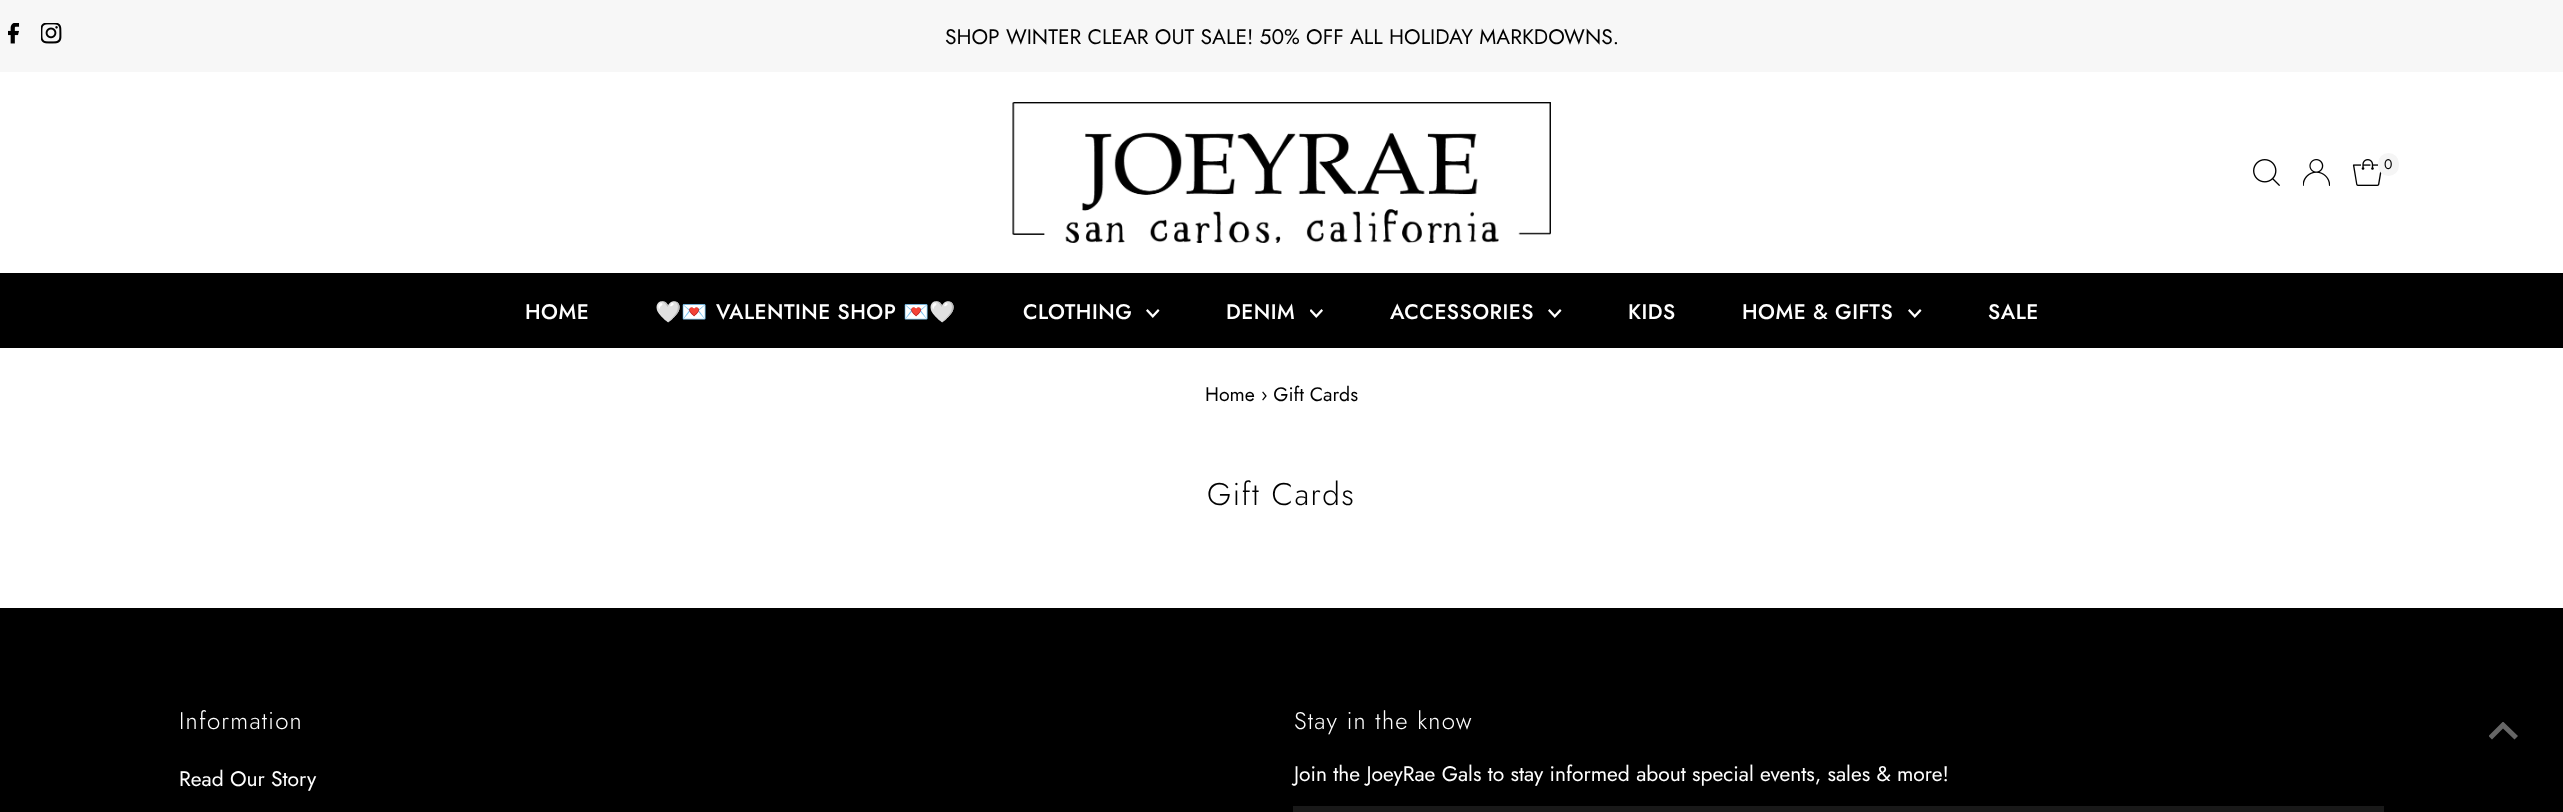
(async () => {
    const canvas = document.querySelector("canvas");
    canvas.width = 2563;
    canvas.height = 812;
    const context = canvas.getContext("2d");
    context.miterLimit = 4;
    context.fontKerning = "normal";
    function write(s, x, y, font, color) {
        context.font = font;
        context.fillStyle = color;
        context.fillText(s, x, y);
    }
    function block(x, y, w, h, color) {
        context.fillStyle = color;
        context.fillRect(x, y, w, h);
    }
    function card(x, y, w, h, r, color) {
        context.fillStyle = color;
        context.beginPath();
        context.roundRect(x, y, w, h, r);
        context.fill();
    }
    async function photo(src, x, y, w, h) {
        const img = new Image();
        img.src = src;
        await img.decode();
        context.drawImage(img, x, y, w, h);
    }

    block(0, 0, 2563, 812, "rgb(255, 255, 255)");
    block(0, 0, 2563, 72, "rgb(247, 247, 247)");
    await photo("media/1.png", 8, 23, 12, 21);
    await photo("media/2.png", 41, 23, 21, 21);
    write("SHOP WINTER CLEAR OUT SALE! 50% OFF ALL HOLIDAY MARKDOWNS.", 945, 44, "21px Jost", "rgb(0, 0, 0)");
    await photo("media/3.png", 1012, 102, 539, 141);
    await photo("media/4.png", 2253, 159, 27, 27);
    await photo("media/5.png", 2303, 159, 27, 27);
    await photo("media/6.png", 2352, 159, 30, 27);
    card(2378, 153, 21, 23, 10.5, "rgb(245, 245, 245)");
    write("0", 2384, 169, "14px Jost", "rgb(0, 0, 0)");
    block(0, 273, 2563, 75, "rgb(0, 0, 0)");
    context.letterSpacing = "0.5px";
    write("HOME", 525, 319, "500 21px Jost", "rgb(255, 255, 255)");
    write("🤍💌", 655, 319, "21px Noto Color Emoji", "rgb(255, 255, 255)");
    write("VALENTINE SHOP", 716, 319, "500 21px Jost", "rgb(255, 255, 255)");
    write("💌🤍", 903, 319, "21px Noto Color Emoji", "rgb(255, 255, 255)");
    write("CLOTHING", 1023, 319, "500 21px Jost", "rgb(255, 255, 255)");
    await photo("media/7.png", 1146, 309, 14, 9);
    write("DENIM", 1226, 319, "500 21px Jost", "rgb(255, 255, 255)");
    await photo("media/8.png", 1310, 309, 13, 9);
    write("ACCESSORIES", 1390, 319, "500 21px Jost", "rgb(255, 255, 255)");
    await photo("media/7.png", 1548, 309, 14, 9);
    write("KIDS", 1628, 319, "500 21px Jost", "rgb(255, 255, 255)");
    write("HOME & GIFTS", 1742, 319, "500 21px Jost", "rgb(255, 255, 255)");
    await photo("media/7.png", 1908, 309, 14, 9);
    write("SALE", 1988, 319, "500 21px Jost", "rgb(255, 255, 255)");
    context.letterSpacing = "0px";
    write("Home › Gift Cards", 1205, 401, "19.5px Jost", "rgb(0, 0, 0)");
    context.letterSpacing = "1.5px";
    write("Gift Cards", 1207, 505, "300 31.5px Jost", "rgb(0, 0, 0)");
    block(0, 608, 2563, 204, "rgb(0, 0, 0)");
    context.letterSpacing = "1.25px";
    write("Information", 179, 729, "300 24px Jost", "rgb(255, 255, 255)");
    context.letterSpacing = "0px";
    write("Read Our Story", 179, 786, "21px Jost", "rgb(255, 255, 255)");
    context.letterSpacing = "1.25px";
    write("Stay in the know", 1294, 729, "300 24px Jost", "rgb(255, 255, 255)");
    context.letterSpacing = "0px";
    write("Join the JoeyRae Gals to stay informed about special events, sales & more!", 1294, 781, "21px Jost", "rgb(255, 255, 255)");
    block(1293, 806, 1091, 6, "rgb(25, 25, 25)");
    context.save();
    context.beginPath();
    context.rect(2489, 722, 30, 18);
    context.clip();
    context.fillStyle = "rgb(102, 102, 102)";
    context.beginPath();
    context.moveTo(2503, 721.5);
    context.lineTo(2488.5, 736);
    context.lineTo(2492, 739.5);
    context.lineTo(2503, 728.5);
    context.lineTo(2514.5, 739.5);
    context.lineTo(2518, 736);
    context.closePath();
    context.fill();
    context.restore();
})();
